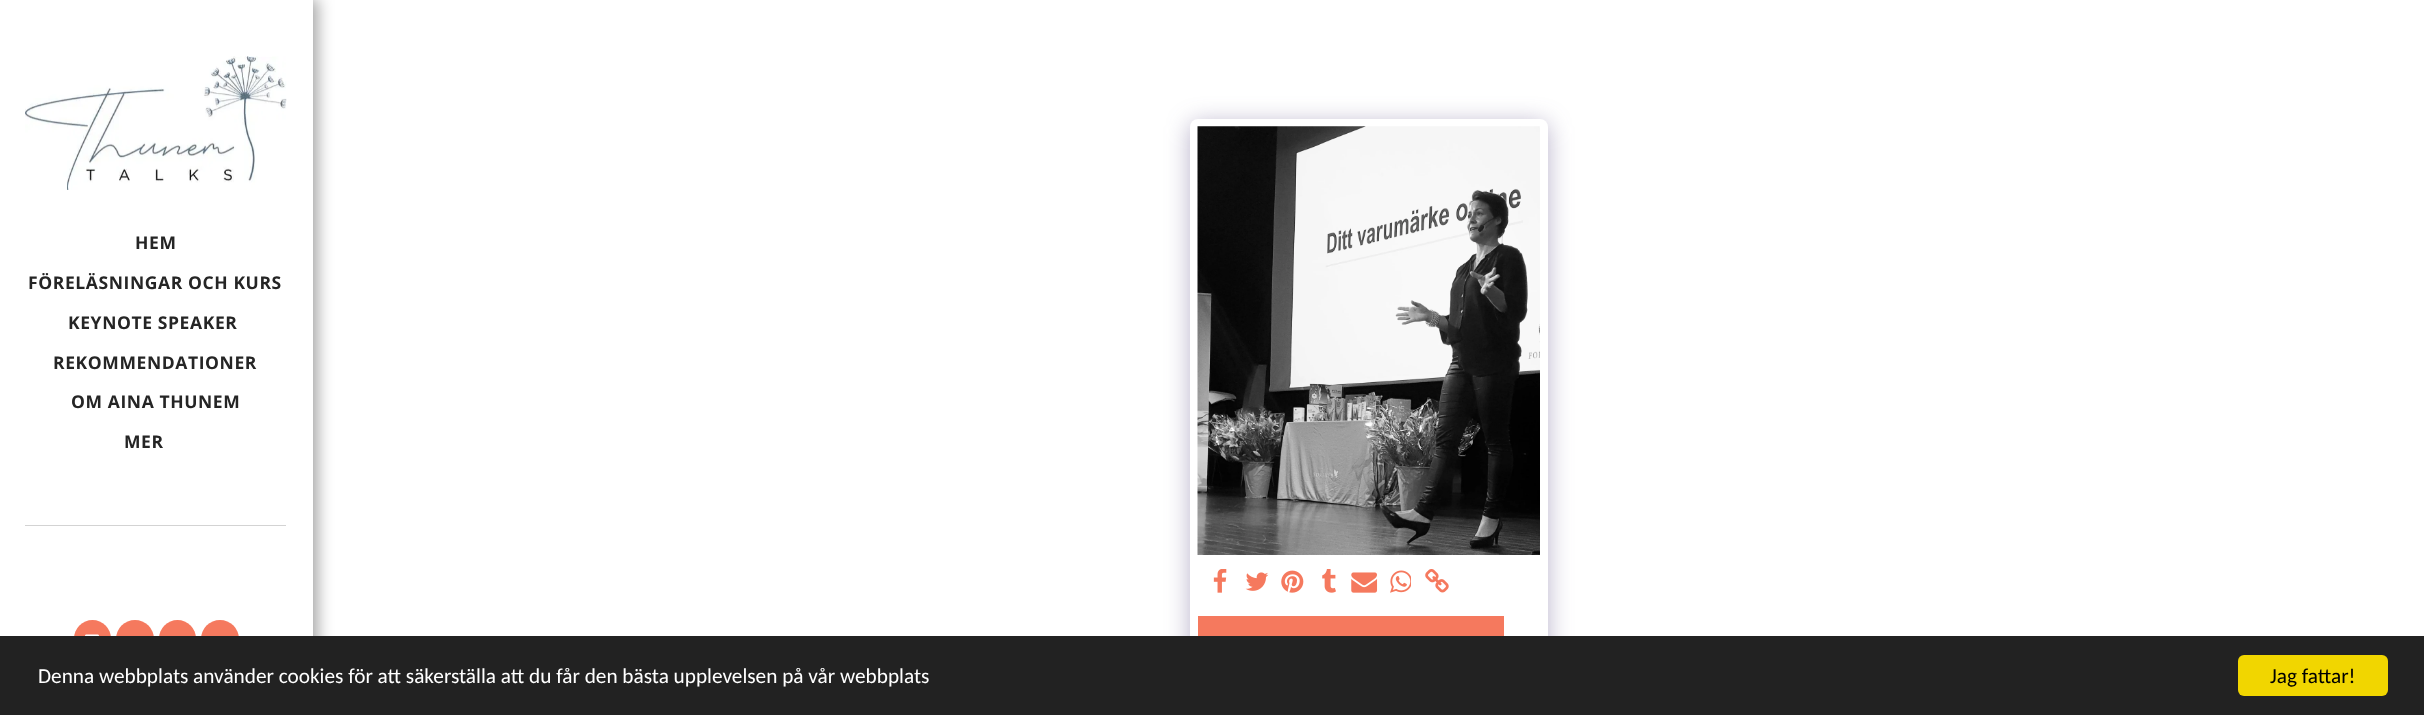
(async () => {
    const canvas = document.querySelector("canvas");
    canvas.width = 2424;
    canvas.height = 715;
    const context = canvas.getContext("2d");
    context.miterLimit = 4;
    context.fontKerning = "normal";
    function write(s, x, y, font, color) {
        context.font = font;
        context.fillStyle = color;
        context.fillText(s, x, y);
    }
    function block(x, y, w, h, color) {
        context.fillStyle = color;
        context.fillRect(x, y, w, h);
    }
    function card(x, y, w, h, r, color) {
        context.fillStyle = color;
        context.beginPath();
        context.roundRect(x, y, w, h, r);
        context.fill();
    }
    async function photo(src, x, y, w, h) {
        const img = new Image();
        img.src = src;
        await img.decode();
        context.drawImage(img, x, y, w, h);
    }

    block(0, 0, 2424, 715, "rgb(255, 255, 255)");
    context.fillStyle = "rgba(0, 0, 0, 0.35)";
    context.filter = "blur(7.5px)";
    context.beginPath();
    context.rect(0, -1, 318, 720);
    context.fill();
    context.filter = "none";
    block(0, 0, 313, 636, "rgb(255, 255, 255)");
    await photo("media/1.png", 25, 56, 262, 134);
    context.letterSpacing = "0.6px";
    write("HEM", 135, 249, "bold 17.5px Open Sans", "rgb(37, 37, 37)");
    write("FÖRELÄSNINGAR OCH KURS", 28, 289, "bold 17.5px Open Sans", "rgb(37, 37, 37)");
    write("KEYNOTE SPEAKER", 68, 329, "bold 17.5px Open Sans", "rgb(37, 37, 37)");
    write("REKOMMENDATIONER", 53, 369, "bold 17.5px Open Sans", "rgb(37, 37, 37)");
    write("OM AINA THUNEM", 71, 408, "bold 17.5px Open Sans", "rgb(37, 37, 37)");
    write("MER", 124, 448, "bold 17.5px Open Sans", "rgb(37, 37, 37)");
    block(25, 525, 261, 1, "rgb(211, 211, 211)");
    card(74, 620, 37, 38, 18.5, "rgb(245, 121, 94)");
    await photo("media/2.png", 85, 634, 14, 2);
    context.beginPath();
    context.arc(135, 639, 19, 0, Math.PI * 2);
    context.fill();
    card(159, 620, 37, 38, 18.5, "rgb(245, 121, 94)");
    context.beginPath();
    context.arc(220, 639, 19, 0, Math.PI * 2);
    context.fill();
    context.fillStyle = "rgba(77, 63, 122, 0.4)";
    context.filter = "blur(12.5px)";
    context.beginPath();
    context.roundRect(1190, 123, 358, 568, 8);
    context.fill();
    context.filter = "none";
    card(1190, 119, 358, 569, 8, "rgb(255, 255, 255)");
    await photo("media/3.png", 1197, 126, 343, 429);
    await photo("media/4.png", 1213, 569, 14, 24);
    await photo("media/5.png", 1245, 572, 24, 19);
    await photo("media/6.png", 1281, 570, 23, 23);
    await photo("media/7.png", 1322, 569, 14, 24);
    await photo("media/8.png", 1351, 572, 27, 21);
    await photo("media/9.png", 1390, 570, 21, 23);
    await photo("media/10.png", 1425, 569, 24, 24);
    block(1198, 616, 306, 20, "rgb(245, 121, 94)");
    block(0, 636, 2424, 79, "rgb(34, 34, 34)");
    context.letterSpacing = "0px";
    write("Denna webbplats använder cookies för att säkerställa att du får den bästa upplevelsen på vår webbplats", 38, 683, "21.25px Carlito", "rgb(255, 255, 255)");
    card(2238, 655, 150, 41, 6, "rgb(241, 214, 0)");
    write("Jag fattar!", 2270, 683, "21.25px Carlito", "rgb(0, 0, 0)");
})();
